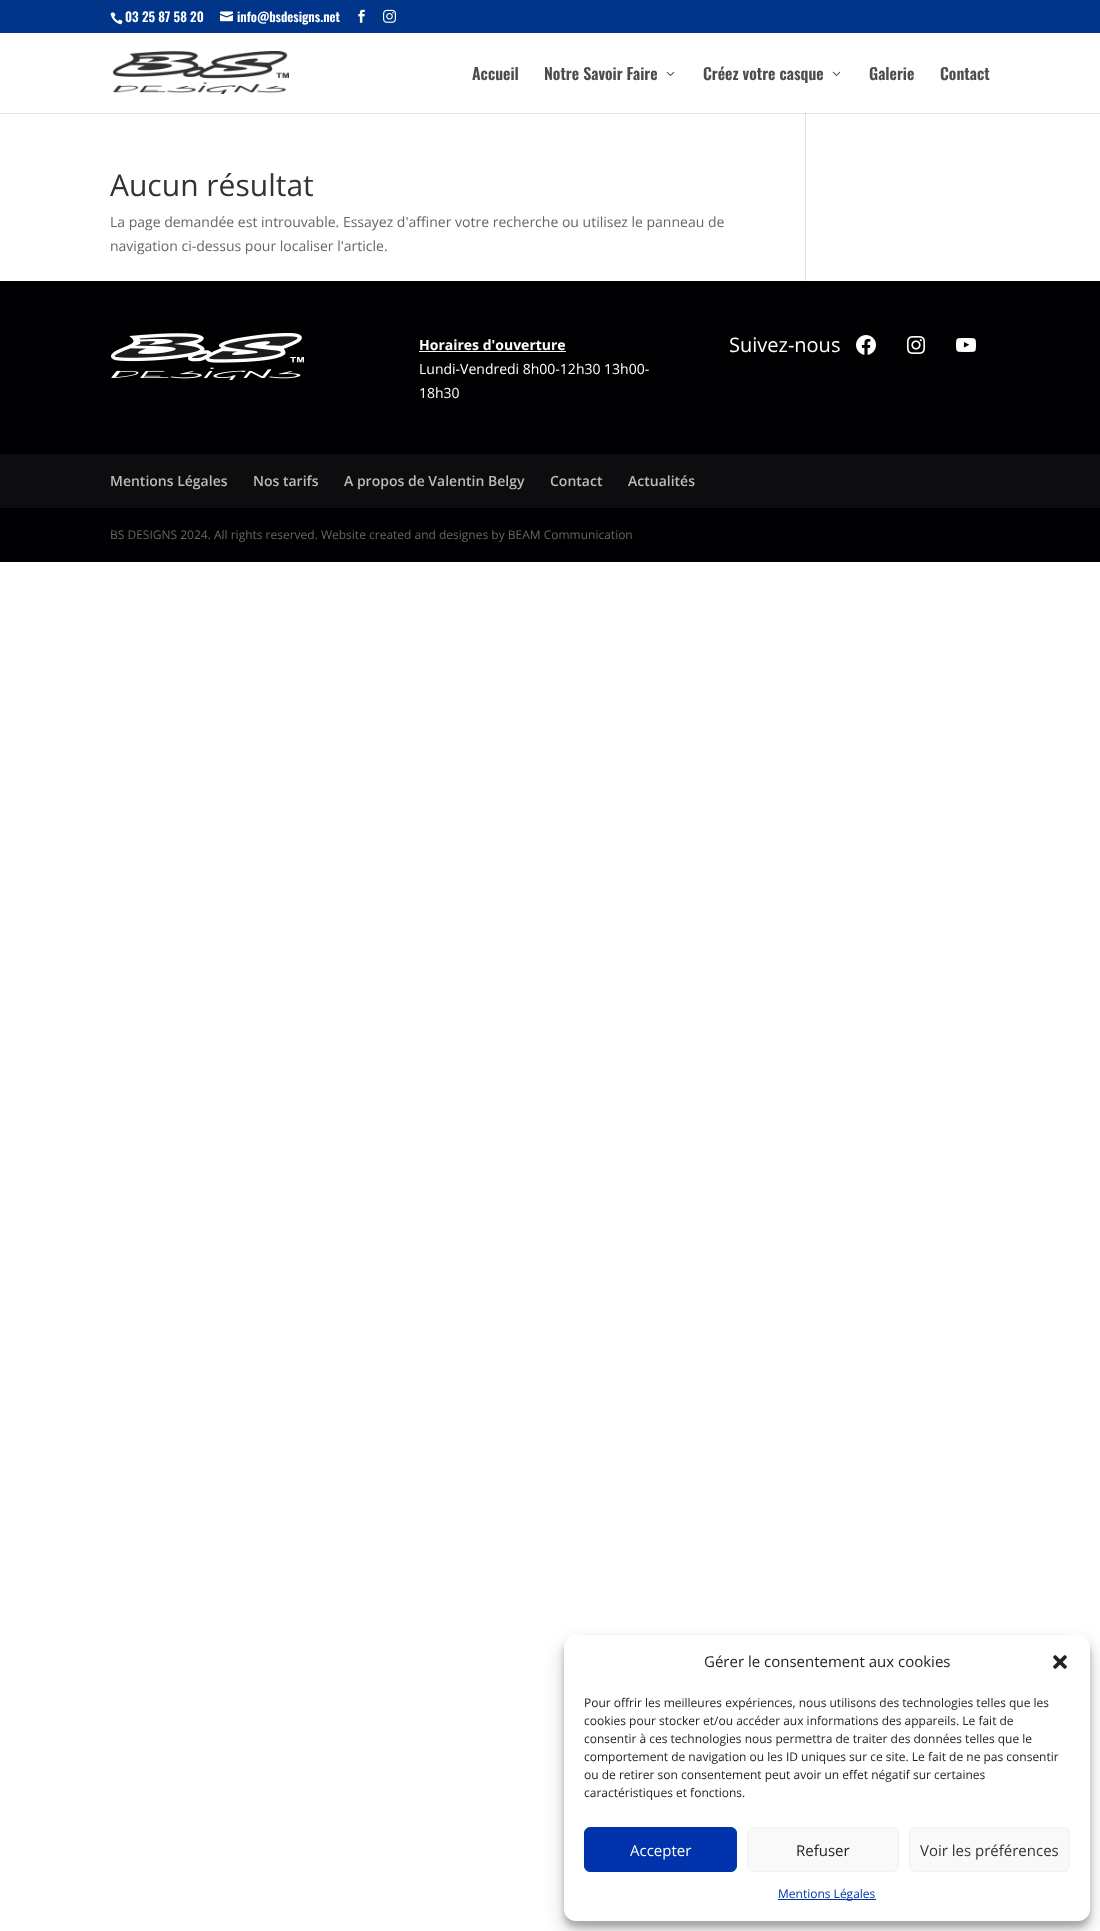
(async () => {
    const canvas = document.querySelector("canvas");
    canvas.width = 1100;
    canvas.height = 1931;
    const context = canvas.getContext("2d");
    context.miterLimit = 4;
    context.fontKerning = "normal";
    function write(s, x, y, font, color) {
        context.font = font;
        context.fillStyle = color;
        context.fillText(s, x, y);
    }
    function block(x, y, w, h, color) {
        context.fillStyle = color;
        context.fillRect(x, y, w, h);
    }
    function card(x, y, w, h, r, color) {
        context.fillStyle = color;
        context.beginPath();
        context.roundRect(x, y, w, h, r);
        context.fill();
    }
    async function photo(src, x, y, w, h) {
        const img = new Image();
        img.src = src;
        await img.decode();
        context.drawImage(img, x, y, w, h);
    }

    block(0, 0, 1100, 1931, "rgb(255, 255, 255)");
    block(0, 113, 1100, 1, "rgb(230, 230, 230)");
    block(0, 0, 1100, 33, "rgb(1, 53, 137)");
    await photo("media/1.png", 110, 12, 13, 13);
    write("03 25 87 58 20", 125, 22, "600 13px Oswald", "rgb(255, 255, 255)");
    await photo("media/2.png", 220, 11, 13, 11);
    write("info@bsdesigns.net", 237, 22, "600 13px Oswald", "rgb(255, 255, 255)");
    await photo("media/3.png", 358, 9, 7, 14);
    await photo("media/4.png", 383, 9, 13, 14);
    block(805, 112, 1, 169, "rgb(226, 226, 226)");
    block(805, 112, 1, 1, "rgb(255, 255, 255)");
    await photo("media/5.png", 113, 51, 176, 43);
    write("Accueil", 472, 80, "600 16px Oswald", "rgb(76, 76, 76)");
    write("Notre Savoir Faire", 544, 80, "600 16px Oswald", "rgb(76, 76, 76)");
    await photo("media/6.png", 666, 71, 9, 5);
    write("Créez votre casque", 703, 80, "600 16px Oswald", "rgb(76, 76, 76)");
    await photo("media/6.png", 832, 71, 9, 5);
    write("Galerie", 869, 80, "600 16px Oswald", "rgb(76, 76, 76)");
    write("Contact", 940, 80, "600 16px Oswald", "rgb(76, 76, 76)");
    write("Aucun résultat", 110, 196, "30px Open Sans", "rgb(51, 51, 51)");
    write("La page demandée est introuvable. Essayez d'affiner votre recherche ou utilisez le panneau de", 110, 227, "14px Open Sans", "rgb(102, 102, 102)");
    write("navigation ci-dessus pour localiser l'article.", 110, 251, "14px Open Sans", "rgb(102, 102, 102)");
    block(805, 113, 1, 1, "rgb(203, 203, 203)");
    block(0, 281, 1100, 281, "rgb(0, 0, 2)");
    await photo("media/7.png", 111, 333, 193, 47);
    write("Horaires d'ouverture", 419, 350, "bold 14px Open Sans", "rgb(255, 255, 255)");
    block(419, 351, 147, 1, "rgb(255, 255, 255)");
    write("Lundi-Vendredi 8h00-12h30 13h00-", 419, 374, "14px Open Sans", "rgb(255, 255, 255)");
    write("18h30", 419, 398, "14px Open Sans", "rgb(255, 255, 255)");
    write("Suivez-nous", 729, 352, "20px Open Sans", "rgb(255, 255, 255)");
    await photo("media/8.png", 856, 335, 20, 20);
    await photo("media/9.png", 907, 336, 18, 18);
    await photo("media/10.png", 956, 338, 20, 14);
    block(0, 454, 1100, 54, "rgb(13, 13, 15)");
    write("Mentions Légales", 110, 486, "600 14px Open Sans", "rgb(187, 187, 187)");
    write("Nos tarifs", 253, 486, "600 14px Open Sans", "rgb(187, 187, 187)");
    write("A propos de Valentin Belgy", 344, 486, "600 14px Open Sans", "rgb(187, 187, 187)");
    write("Contact", 550, 486, "600 14px Open Sans", "rgb(187, 187, 187)");
    write("Actualités", 628, 486, "600 14px Open Sans", "rgb(187, 187, 187)");
    write("BS DESIGNS 2024. All rights reserved. Website created and designes by BEAM Communication", 110, 539, "12px Open Sans", "rgb(102, 102, 102)");
    context.fillStyle = "rgba(0, 0, 0, 0.23)";
    context.filter = "blur(3px)";
    context.beginPath();
    context.roundRect(564, 1641, 526, 286, 12);
    context.fill();
    context.filter = "none";
    context.fillStyle = "rgba(0, 0, 0, 0.19)";
    context.filter = "blur(10px)";
    context.beginPath();
    context.roundRect(564, 1645, 526, 286, 12);
    context.fill();
    context.filter = "none";
    card(564, 1635, 526, 286, 12, "rgb(255, 255, 255)");
    write("Gérer le consentement aux cookies", 704, 1667, "15px Open Sans", "rgb(34, 34, 34)");
    await photo("media/11.png", 1053, 1655, 14, 14);
    write("Pour offrir les meilleures expériences, nous utilisons des technologies telles que les", 584, 1707, "12px Open Sans", "rgb(34, 34, 34)");
    write("cookies pour stocker et/ou accéder aux informations des appareils. Le fait de", 584, 1725, "12px Open Sans", "rgb(34, 34, 34)");
    write("consentir à ces technologies nous permettra de traiter des données telles que le", 584, 1743, "12px Open Sans", "rgb(34, 34, 34)");
    write("comportement de navigation ou les ID uniques sur ce site. Le fait de ne pas consentir", 584, 1761, "12px Open Sans", "rgb(34, 34, 34)");
    write("ou de retirer son consentement peut avoir un effet négatif sur certaines", 584, 1779, "12px Open Sans", "rgb(34, 34, 34)");
    write("caractéristiques et fonctions.", 584, 1797, "12px Open Sans", "rgb(34, 34, 34)");
    context.fillStyle = "rgb(1, 52, 172)";
    context.beginPath();
    context.roundRect(584.5, 1827.5, 152, 44, 5.5);
    context.fill();
    context.strokeStyle = "rgb(1, 52, 172)";
    context.stroke();
    write("Accepter", 630, 1856, "15px Open Sans", "rgb(255, 255, 255)");
    context.fillStyle = "rgb(249, 249, 249)";
    context.beginPath();
    context.roundRect(747.5, 1827.5, 151, 44, 5.5);
    context.fill();
    context.strokeStyle = "rgb(242, 242, 242)";
    context.stroke();
    write("Refuser", 796, 1856, "15px Open Sans", "rgb(34, 34, 34)");
    context.fillStyle = "rgb(249, 249, 249)";
    context.beginPath();
    context.roundRect(909.5, 1827.5, 160, 44, 5.5);
    context.fill();
    context.stroke();
    write("Voir les préférences", 920, 1856, "15px Open Sans", "rgb(51, 51, 51)");
    block(778, 1899, 98, 1, "rgb(1, 52, 172)");
    write("Mentions Légales", 778, 1898, "12px Open Sans", "rgb(1, 52, 172)");
})();
